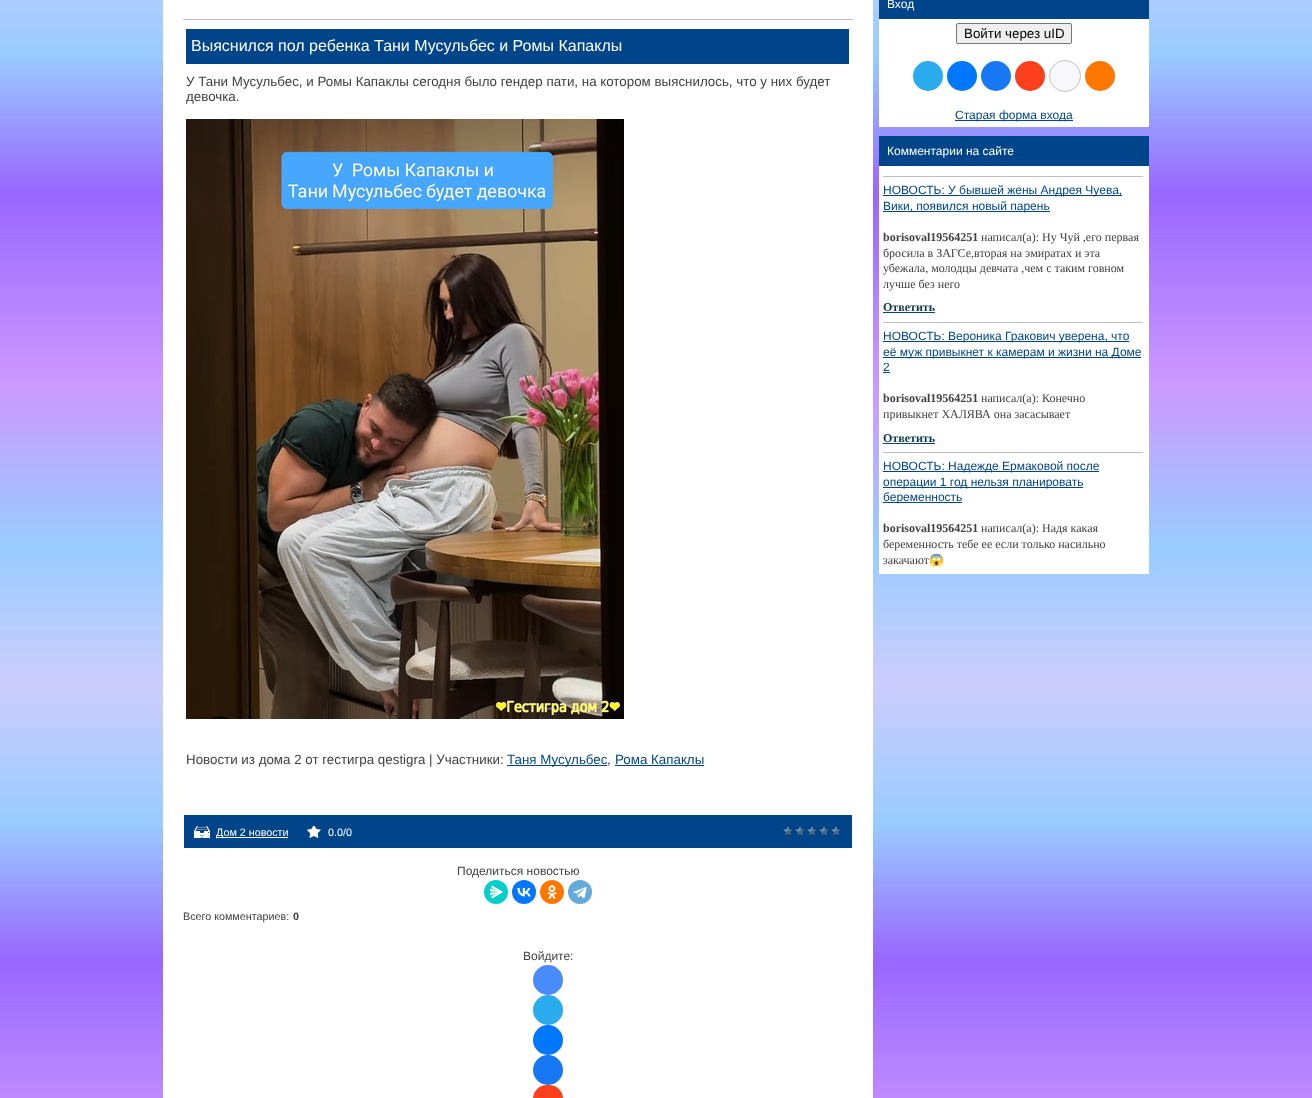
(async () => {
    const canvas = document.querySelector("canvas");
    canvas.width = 1312;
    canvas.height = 1098;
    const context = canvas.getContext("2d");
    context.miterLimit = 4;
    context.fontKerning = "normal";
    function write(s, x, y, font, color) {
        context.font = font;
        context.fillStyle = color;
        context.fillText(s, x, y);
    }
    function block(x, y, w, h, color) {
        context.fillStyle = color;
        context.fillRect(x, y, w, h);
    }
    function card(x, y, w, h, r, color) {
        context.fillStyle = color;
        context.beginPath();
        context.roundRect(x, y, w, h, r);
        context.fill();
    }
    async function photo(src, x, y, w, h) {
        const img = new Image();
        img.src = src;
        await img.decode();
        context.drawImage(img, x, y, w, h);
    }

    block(0, 0, 1312, 1098, "rgb(255, 255, 255)");
    await photo("media/1.png", 0, 0, 1312, 1098);
    block(163, 0, 710, 1098, "rgb(255, 255, 255)");
    block(183, 19, 670, 1, "rgb(191, 191, 191)");
    block(186, 29, 663, 35, "rgb(0, 68, 138)");
    write("Выяснился пол ребенка Тани Мусульбес и Ромы Капаклы", 191, 51, "16px Liberation Sans", "rgb(255, 255, 255)");
    write("У Тани Мусульбес, и Ромы Капаклы сегодня было гендер пати, на котором выяснилось, что у них будет", 186, 86, "13.35px Liberation Sans", "rgb(65, 65, 65)");
    write("девочка.", 186, 101, "13.35px Liberation Sans", "rgb(65, 65, 65)");
    await photo("media/2.png", 186, 119, 438, 600);
    write("Новости из дома 2 от гестигра qestigra | Участники:", 186, 764, "13.35px Liberation Sans", "rgb(65, 65, 65)");
    block(507, 765, 100, 1, "rgb(0, 68, 138)");
    write("Таня Мусульбес", 507, 764, "13.35px Liberation Sans", "rgb(0, 68, 138)");
    write(",", 607, 764, "13.35px Liberation Sans", "rgb(65, 65, 65)");
    block(615, 765, 89, 1, "rgb(0, 68, 138)");
    write("Рома Капаклы", 615, 764, "13.35px Liberation Sans", "rgb(0, 68, 138)");
    block(184, 815, 668, 33, "rgb(0, 68, 138)");
    await photo("media/3.png", 194, 826, 16, 12);
    block(216, 837, 72, 1, "rgb(255, 255, 255)");
    write("Дом 2 новости", 216, 836, "10.75px Liberation Sans", "rgb(255, 255, 255)");
    await photo("media/4.png", 307, 826, 14, 12);
    write("0.0/0", 328, 836, "10.75px Liberation Sans", "rgb(255, 255, 255)");
    await photo("media/5.png", 782, 825, 60, 12);
    write("Поделиться новостью", 457, 875, "12px Liberation Sans", "rgb(65, 65, 65)");
    context.fillStyle = "rgb(3, 206, 206)";
    context.beginPath();
    context.arc(496, 892, 12, 0, Math.PI * 2);
    context.fill();
    await photo("media/6.png", 489, 885, 14, 14);
    context.fillStyle = "rgb(0, 119, 255)";
    context.beginPath();
    context.arc(524, 892, 12, 0, Math.PI * 2);
    context.fill();
    await photo("media/7.png", 517, 888, 14, 9);
    context.fillStyle = "rgb(255, 119, 0)";
    context.beginPath();
    context.arc(552, 892, 12, 0, Math.PI * 2);
    context.fill();
    await photo("media/8.png", 547, 885, 10, 14);
    context.fillStyle = "rgb(100, 169, 220)";
    context.beginPath();
    context.arc(580, 892, 12, 0, Math.PI * 2);
    context.fill();
    await photo("media/9.png", 573, 887, 14, 12);
    write("Всего комментариев:", 183, 920, "10.75px Liberation Sans", "rgb(65, 65, 65)");
    write("0", 293, 920, "bold 10.75px Liberation Sans", "rgb(65, 65, 65)");
    write("Войдите:", 523, 960, "12px Liberation Sans", "rgb(65, 65, 65)");
    context.fillStyle = "rgb(73, 139, 250)";
    context.beginPath();
    context.arc(548, 980, 15, 0, Math.PI * 2);
    context.fill();
    context.fillStyle = "rgb(42, 171, 238)";
    context.beginPath();
    context.arc(548, 1010, 15, 0, Math.PI * 2);
    context.fill();
    context.fillStyle = "rgb(0, 119, 255)";
    context.beginPath();
    context.arc(548, 1040, 15, 0, Math.PI * 2);
    context.fill();
    context.fillStyle = "rgb(24, 119, 242)";
    context.beginPath();
    context.arc(548, 1070, 15, 0, Math.PI * 2);
    context.fill();
    card(533, 1085, 30, 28, 15, "rgb(252, 63, 29)");
    block(879, 0, 270, 19, "rgb(0, 68, 138)");
    write("Вход", 887, 8, "12px Liberation Sans", "rgb(255, 255, 255)");
    block(879, 19, 270, 108, "rgb(255, 255, 255)");
    context.fillStyle = "rgb(239, 239, 239)";
    context.beginPath();
    context.roundRect(956.5, 23.5, 115, 20, 1.5);
    context.fill();
    context.strokeStyle = "rgb(118, 118, 118)";
    context.stroke();
    write("Войти через uID", 964, 38, "13.35px Liberation Sans", "rgb(0, 0, 0)");
    context.fillStyle = "rgb(42, 171, 238)";
    context.beginPath();
    context.arc(928, 76, 15, 0, Math.PI * 2);
    context.fill();
    context.fillStyle = "rgb(0, 119, 255)";
    context.beginPath();
    context.arc(962, 76, 15, 0, Math.PI * 2);
    context.fill();
    context.fillStyle = "rgb(24, 119, 242)";
    context.beginPath();
    context.arc(996, 76, 15, 0, Math.PI * 2);
    context.fill();
    context.fillStyle = "rgb(252, 63, 29)";
    context.beginPath();
    context.arc(1030, 76, 15, 0, Math.PI * 2);
    context.fill();
    context.fillStyle = "rgb(248, 248, 252)";
    context.beginPath();
    context.arc(1065, 76, 15.5, 0, Math.PI * 2);
    context.fill();
    context.strokeStyle = "rgb(196, 196, 196)";
    context.stroke();
    context.fillStyle = "rgb(255, 119, 0)";
    context.beginPath();
    context.arc(1100, 76, 15, 0, Math.PI * 2);
    context.fill();
    block(955, 120, 118, 1, "rgb(0, 68, 138)");
    write("Старая форма входа", 955, 119, "12px Liberation Sans", "rgb(0, 68, 138)");
    block(879, 136, 270, 30, "rgb(0, 68, 138)");
    write("Комментарии на сайте", 887, 155, "12px Liberation Sans", "rgb(255, 255, 255)");
    block(879, 166, 270, 408, "rgb(255, 255, 255)");
    block(883, 176, 260, 1, "rgb(191, 191, 191)");
    block(883, 195, 239, 1, "rgb(0, 68, 138)");
    write("НОВОСТЬ: У бывшей жены Андрея Чуева,", 883, 194, "12px Liberation Sans", "rgb(0, 68, 138)");
    block(883, 211, 167, 1, "rgb(0, 68, 138)");
    write("Вики, появился новый парень", 883, 210, "12px Liberation Sans", "rgb(0, 68, 138)");
    write("borisoval19564251", 883, 241, "bold 12px Liberation Serif", "rgb(65, 65, 65)");
    write("написал(а): Ну Чуй ,его первая", 981, 241, "12px Liberation Serif", "rgb(65, 65, 65)");
    write("бросила в ЗАГСе,вторая на эмиратах и эта", 883, 257, "12px Liberation Serif", "rgb(65, 65, 65)");
    write("убежала, молодцы девчата ,чем с таким говном", 883, 272, "12px Liberation Serif", "rgb(65, 65, 65)");
    write("лучше без него", 883, 288, "12px Liberation Serif", "rgb(65, 65, 65)");
    write("Ответить", 883, 311, "bold 12px Liberation Serif", "rgb(12, 55, 71)");
    block(883, 312, 52, 1, "rgb(0, 68, 138)");
    block(883, 322, 260, 1, "rgb(191, 191, 191)");
    block(883, 341, 246, 1, "rgb(0, 68, 138)");
    write("НОВОСТЬ: Вероника Гракович уверена, что", 883, 340, "12px Liberation Sans", "rgb(0, 68, 138)");
    block(883, 357, 258, 1, "rgb(0, 68, 138)");
    write("её муж привыкнет к камерам и жизни на Доме", 883, 356, "12px Liberation Sans", "rgb(0, 68, 138)");
    write("2", 883, 371, "12px Liberation Sans", "rgb(0, 68, 138)");
    block(883, 372, 7, 1, "rgb(0, 68, 138)");
    write("borisoval19564251", 883, 402, "bold 12px Liberation Serif", "rgb(65, 65, 65)");
    write("написал(а): Конечно", 981, 402, "12px Liberation Serif", "rgb(65, 65, 65)");
    write("привыкнет ХАЛЯВА она засасывает", 883, 418, "12px Liberation Serif", "rgb(65, 65, 65)");
    write("Ответить", 883, 442, "bold 12px Liberation Serif", "rgb(12, 55, 71)");
    block(883, 443, 52, 1, "rgb(0, 68, 138)");
    block(883, 452, 260, 1, "rgb(191, 191, 191)");
    block(883, 471, 216, 1, "rgb(0, 68, 138)");
    write("НОВОСТЬ: Надежде Ермаковой после", 883, 470, "12px Liberation Sans", "rgb(0, 68, 138)");
    block(883, 487, 200, 1, "rgb(0, 68, 138)");
    write("операции 1 год нельзя планировать", 883, 486, "12px Liberation Sans", "rgb(0, 68, 138)");
    block(883, 502, 79, 1, "rgb(0, 68, 138)");
    write("беременность", 883, 501, "12px Liberation Sans", "rgb(0, 68, 138)");
    write("borisoval19564251", 883, 532, "bold 12px Liberation Serif", "rgb(65, 65, 65)");
    write("написал(а): Надя какая", 981, 532, "12px Liberation Serif", "rgb(65, 65, 65)");
    write("беременность тебе ее если только насильно", 883, 548, "12px Liberation Serif", "rgb(65, 65, 65)");
    write("закачают", 883, 564, "12px Liberation Serif", "rgb(65, 65, 65)");
    write("😱", 929, 564, "12px Noto Color Emoji", "rgb(65, 65, 65)");
})();
